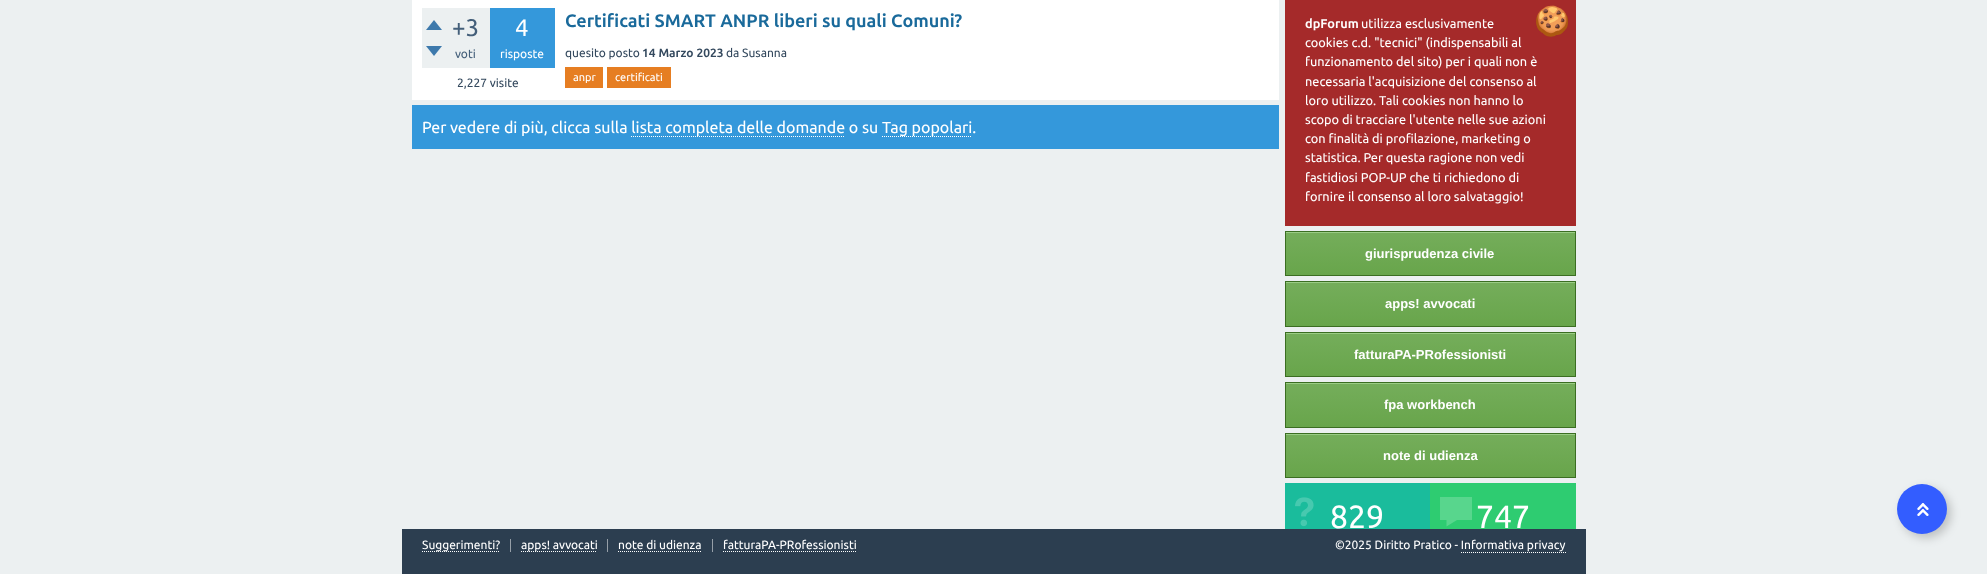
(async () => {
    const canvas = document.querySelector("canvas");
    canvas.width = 1987;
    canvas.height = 574;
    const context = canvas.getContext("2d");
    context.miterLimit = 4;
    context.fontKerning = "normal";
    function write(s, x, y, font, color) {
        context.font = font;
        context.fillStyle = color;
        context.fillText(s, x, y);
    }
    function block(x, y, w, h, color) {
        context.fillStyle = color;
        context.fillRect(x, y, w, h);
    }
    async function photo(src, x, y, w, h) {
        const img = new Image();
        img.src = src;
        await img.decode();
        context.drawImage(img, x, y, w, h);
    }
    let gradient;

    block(0, 0, 1987, 574, "rgb(236, 240, 241)");
    block(412, 0, 867, 100, "rgb(255, 255, 255)");
    block(422, 8, 68, 60, "rgb(236, 240, 241)");
    await photo("media/1.png", 426, 20, 16, 10);
    await photo("media/2.png", 426, 46, 16, 10);
    write("+3", 452, 36, "24px Ubuntu", "rgb(68, 95, 122)");
    write("voti", 455, 58, "12px Ubuntu", "rgb(68, 95, 122)");
    block(490, 8, 65, 60, "rgb(52, 152, 219)");
    write("4", 515, 36, "24px Ubuntu", "rgb(255, 255, 255)");
    write("risposte", 500, 58, "12px Ubuntu", "rgb(255, 255, 255)");
    write("2,227 visite", 457, 87, "12px Ubuntu", "rgb(52, 73, 94)");
    write("Certificati SMART ANPR liberi su quali Comuni?", 565, 27, "bold 18px Ubuntu", "rgb(26, 106, 155)");
    write("quesito posto", 565, 57, "12px Ubuntu", "rgb(52, 73, 94)");
    write("14 Marzo 2023", 642, 57, "bold 12px Ubuntu", "rgb(52, 73, 94)");
    write("da Susanna", 726, 57, "12px Ubuntu", "rgb(52, 73, 94)");
    block(565, 67, 38, 21, "rgb(230, 126, 34)");
    write("anpr", 573, 81, "11px Ubuntu", "rgb(255, 255, 255)");
    block(607, 67, 64, 21, "rgb(230, 126, 34)");
    write("certificati", 615, 81, "11px Ubuntu", "rgb(255, 255, 255)");
    block(412, 105, 867, 44, "rgb(52, 152, 219)");
    write("Per vedere di più, clicca sulla lista completa delle domande o su Tag popolari.", 422, 133, "16px Ubuntu", "rgb(255, 255, 255)");
    context.beginPath();
    context.moveTo(631, 136.5);
    context.lineTo(845, 136.5);
    context.strokeStyle = "rgb(255, 255, 255)";
    context.setLineDash([1, 1]);
    context.stroke();
    context.beginPath();
    context.moveTo(882, 136.5);
    context.lineTo(972, 136.5);
    context.stroke();
    block(1285, 0, 291, 226, "rgb(165, 42, 42)");
    write("dpForum", 1305, 28, "bold 12.75px Ubuntu", "rgb(255, 255, 255)");
    write("utilizza esclusivamente", 1361, 28, "12.75px Ubuntu", "rgb(255, 255, 255)");
    write("🍪", 1534, 31, "29px Noto Color Emoji", "rgb(255, 255, 255)");
    write("cookies c.d. \"tecnici\" (indispensabili al", 1305, 47, "12.75px Ubuntu", "rgb(255, 255, 255)");
    write("funzionamento del sito) per i quali non è", 1305, 66, "12.75px Ubuntu", "rgb(255, 255, 255)");
    write("necessaria l'acquisizione del consenso al", 1305, 86, "12.75px Ubuntu", "rgb(255, 255, 255)");
    write("loro utilizzo. Tali cookies non hanno lo", 1305, 105, "12.75px Ubuntu", "rgb(255, 255, 255)");
    write("scopo di tracciare l'utente nelle sue azioni", 1305, 124, "12.75px Ubuntu", "rgb(255, 255, 255)");
    write("con finalità di profilazione, marketing o", 1305, 143, "12.75px Ubuntu", "rgb(255, 255, 255)");
    write("statistica. Per questa ragione non vedi", 1305, 162, "12.75px Ubuntu", "rgb(255, 255, 255)");
    write("fastidiosi POP-UP che ti richiedono di", 1305, 182, "12.75px Ubuntu", "rgb(255, 255, 255)");
    write("fornire il consenso al loro salvataggio!", 1305, 201, "12.75px Ubuntu", "rgb(255, 255, 255)");
    gradient = context.createLinearGradient(1431, 232, 1431, 275);
    gradient.addColorStop(0.05, "rgb(116, 173, 90)");
    gradient.addColorStop(1, "rgb(104, 165, 75)");
    context.fillStyle = gradient;
    context.fillRect(1286, 233, 289, 42);
    block(1286, 232, 289, 1, "rgb(154, 204, 133)");
    context.strokeStyle = "rgb(59, 110, 34)";
    context.setLineDash([]);
    context.strokeRect(1285.5, 231.5, 290, 44);
    write("giurisprudenza civile", 1365, 258, "bold 13px Liberation Sans", "rgb(255, 255, 255)");
    gradient = context.createLinearGradient(1431, 282, 1431, 326);
    gradient.addColorStop(0.05, "rgb(116, 173, 90)");
    gradient.addColorStop(1, "rgb(104, 165, 75)");
    context.fillStyle = gradient;
    context.fillRect(1286, 283, 289, 43);
    block(1286, 282, 289, 1, "rgb(154, 204, 133)");
    context.strokeRect(1285.5, 281.5, 290, 45);
    write("apps! avvocati", 1385, 308, "bold 13px Liberation Sans", "rgb(255, 255, 255)");
    gradient = context.createLinearGradient(1431, 333, 1431, 376);
    gradient.addColorStop(0.05, "rgb(116, 173, 90)");
    gradient.addColorStop(1, "rgb(104, 165, 75)");
    context.fillStyle = gradient;
    context.fillRect(1286, 334, 289, 42);
    block(1286, 333, 289, 1, "rgb(154, 204, 133)");
    context.strokeRect(1285.5, 332.5, 290, 44);
    write("fatturaPA-PRofessionisti", 1354, 359, "bold 13px Liberation Sans", "rgb(255, 255, 255)");
    gradient = context.createLinearGradient(1431, 383, 1431, 427);
    gradient.addColorStop(0.05, "rgb(116, 173, 90)");
    gradient.addColorStop(1, "rgb(104, 165, 75)");
    context.fillStyle = gradient;
    context.fillRect(1286, 384, 289, 43);
    block(1286, 383, 289, 1, "rgb(154, 204, 133)");
    context.strokeRect(1285.5, 382.5, 290, 45);
    write("fpa workbench", 1384, 409, "bold 13px Liberation Sans", "rgb(255, 255, 255)");
    gradient = context.createLinearGradient(1431, 434, 1431, 477);
    gradient.addColorStop(0.05, "rgb(116, 173, 90)");
    gradient.addColorStop(1, "rgb(104, 165, 75)");
    context.fillStyle = gradient;
    context.fillRect(1286, 435, 289, 42);
    block(1286, 434, 289, 1, "rgb(154, 204, 133)");
    context.strokeRect(1285.5, 433.5, 290, 44);
    write("note di udienza", 1383, 460, "bold 13px Liberation Sans", "rgb(255, 255, 255)");
    block(1285, 483, 145, 46, "rgb(26, 188, 156)");
    await photo("media/3.png", 1295, 497, 19, 30);
    write("829", 1330, 528, "32px Ubuntu", "rgb(255, 255, 255)");
    block(1430, 483, 146, 46, "rgb(46, 204, 113)");
    context.fillStyle = "rgb(88, 214, 141)";
    context.beginPath();
    context.moveTo(1440, 520);
    context.lineTo(1440, 497);
    context.lineTo(1472, 497);
    context.lineTo(1472, 520);
    context.lineTo(1457, 520);
    context.lineTo(1446.5, 526.5);
    context.lineTo(1446.5, 520);
    context.closePath();
    context.fill();
    write("747", 1476, 528, "32px Ubuntu", "rgb(255, 255, 255)");
    context.fillStyle = "rgba(0, 0, 0, 0.2)";
    context.filter = "blur(5px)";
    context.beginPath();
    context.roundRect(1901, 488, 50, 50, 25);
    context.fill();
    context.filter = "none";
    context.fillStyle = "rgb(51, 93, 255)";
    context.beginPath();
    context.arc(1922, 509, 25, 0, Math.PI * 2);
    context.fill();
    await photo("media/4.png", 1917, 503, 12, 7);
    await photo("media/5.png", 1917, 509, 12, 7);
    block(402, 529, 1184, 45, "rgb(44, 62, 80)");
    block(510, 539, 1, 13, "rgb(150, 159, 168)");
    context.beginPath();
    context.moveTo(422, 551.5);
    context.lineTo(500, 551.5);
    context.strokeStyle = "rgb(255, 255, 255)";
    context.setLineDash([1, 1]);
    context.stroke();
    write("Suggerimenti?", 422, 549, "12px Ubuntu", "rgb(255, 255, 255)");
    block(607, 539, 1, 13, "rgb(150, 159, 168)");
    context.beginPath();
    context.moveTo(521, 551.5);
    context.lineTo(597, 551.5);
    context.stroke();
    write("apps! avvocati", 521, 549, "12px Ubuntu", "rgb(255, 255, 255)");
    block(712, 539, 1, 13, "rgb(150, 159, 168)");
    context.beginPath();
    context.moveTo(618, 551.5);
    context.lineTo(702, 551.5);
    context.stroke();
    write("note di udienza", 618, 549, "12px Ubuntu", "rgb(255, 255, 255)");
    context.beginPath();
    context.moveTo(723, 551.5);
    context.lineTo(857, 551.5);
    context.stroke();
    write("fatturaPA-PRofessionisti", 723, 549, "12px Ubuntu", "rgb(255, 255, 255)");
    write("©2025 Diritto Pratico - Informativa privacy", 1335, 549, "12px Ubuntu", "rgb(255, 255, 255)");
    context.beginPath();
    context.moveTo(1461, 552.5);
    context.lineTo(1566, 552.5);
    context.stroke();
})();
